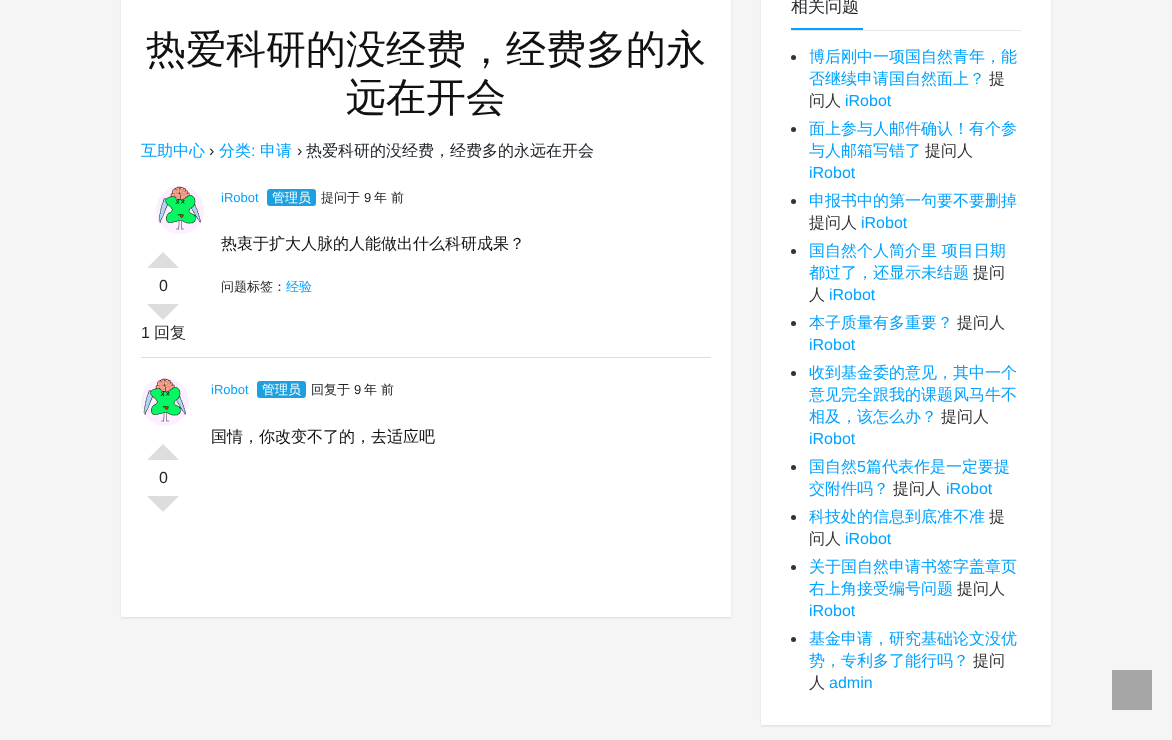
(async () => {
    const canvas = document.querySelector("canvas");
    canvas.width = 1172;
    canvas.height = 740;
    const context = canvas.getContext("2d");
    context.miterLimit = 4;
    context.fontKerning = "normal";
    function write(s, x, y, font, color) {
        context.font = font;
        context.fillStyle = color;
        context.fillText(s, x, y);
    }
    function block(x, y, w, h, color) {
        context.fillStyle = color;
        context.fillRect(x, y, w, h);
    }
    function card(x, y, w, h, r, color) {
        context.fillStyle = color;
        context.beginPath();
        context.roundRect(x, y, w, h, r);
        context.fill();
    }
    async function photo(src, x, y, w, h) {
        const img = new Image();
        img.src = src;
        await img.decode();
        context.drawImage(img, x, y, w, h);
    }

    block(0, 0, 1172, 740, "rgb(245, 245, 245)");
    context.fillStyle = "rgba(0, 0, 0, 0.1)";
    context.filter = "blur(1px)";
    context.beginPath();
    context.rect(121, -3, 610, 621);
    context.fill();
    context.filter = "none";
    block(121, 0, 610, 617, "rgb(255, 255, 255)");
    write("热爱科研的没经费，经费多的永", 146, 63, "500 40px WenQuanYi Zen Hei", "rgb(17, 17, 17)");
    write("远在开会", 346, 111, "500 40px WenQuanYi Zen Hei", "rgb(17, 17, 17)");
    write("互助中心", 141, 156, "500 16px WenQuanYi Zen Hei", "rgb(0, 162, 255)");
    write("›", 209, 156, "16px Liberation Sans", "rgb(33, 37, 41)");
    write("分类", 219, 156, "500 16px WenQuanYi Zen Hei", "rgb(0, 162, 255)");
    write(":", 251, 156, "16px Liberation Sans", "rgb(0, 162, 255)");
    write("申请", 260, 156, "500 16px WenQuanYi Zen Hei", "rgb(0, 162, 255)");
    write("›", 297, 156, "16px Liberation Sans", "rgb(33, 37, 41)");
    write("热爱科研的没经费，经费多的永远在开会", 306, 156, "500 16px WenQuanYi Zen Hei", "rgb(33, 37, 41)");
    await photo("media/1.png", 156, 186, 48, 48);
    write("iRobot", 221, 202, "13px Liberation Sans", "rgb(0, 162, 255)");
    card(267, 189, 49, 17, 3, "rgb(27, 161, 226)");
    write("管理员", 272, 202, "500 13px WenQuanYi Zen Hei", "rgb(255, 255, 255)");
    write("提问于", 321, 202, "500 13px WenQuanYi Zen Hei", "rgb(33, 37, 41)");
    write("9", 364, 202, "13px Liberation Sans", "rgb(33, 37, 41)");
    write("年 前", 374, 202, "500 13px WenQuanYi Zen Hei", "rgb(33, 37, 41)");
    write("热衷于扩大人脉的人能做出什么科研成果？", 221, 249, "500 16px WenQuanYi Zen Hei", "rgb(17, 17, 17)");
    context.fillStyle = "rgb(221, 221, 221)";
    context.beginPath();
    context.moveTo(179, 268);
    context.lineTo(147, 268);
    context.lineTo(163, 252);
    context.closePath();
    context.fill();
    write("0", 159, 291, "16px Liberation Sans", "rgb(33, 37, 41)");
    context.fillStyle = "rgb(221, 221, 221)";
    context.beginPath();
    context.moveTo(147, 304);
    context.lineTo(179, 304);
    context.lineTo(163, 320);
    context.closePath();
    context.fill();
    write("问题标签：", 221, 291, "500 13px WenQuanYi Zen Hei", "rgb(33, 37, 41)");
    write("经验", 286, 291, "500 13px WenQuanYi Zen Hei", "rgb(0, 162, 255)");
    write("1", 141, 338, "16px Liberation Sans", "rgb(33, 37, 41)");
    write("回复", 154, 338, "500 16px WenQuanYi Zen Hei", "rgb(33, 37, 41)");
    block(141, 357, 570, 1, "rgb(221, 221, 221)");
    await photo("media/2.png", 141, 378, 48, 48);
    write("iRobot", 211, 394, "13px Liberation Sans", "rgb(0, 162, 255)");
    card(257, 381, 49, 17, 3, "rgb(27, 161, 226)");
    write("管理员", 262, 394, "500 13px WenQuanYi Zen Hei", "rgb(255, 255, 255)");
    write("回复于", 311, 394, "500 13px WenQuanYi Zen Hei", "rgb(33, 37, 41)");
    write("9", 354, 394, "13px Liberation Sans", "rgb(33, 37, 41)");
    write("年 前", 364, 394, "500 13px WenQuanYi Zen Hei", "rgb(33, 37, 41)");
    write("国情，你改变不了的，去适应吧", 211, 442, "500 16px WenQuanYi Zen Hei", "rgb(17, 17, 17)");
    context.fillStyle = "rgb(221, 221, 221)";
    context.beginPath();
    context.moveTo(179, 460);
    context.lineTo(147, 460);
    context.lineTo(163, 444);
    context.closePath();
    context.fill();
    write("0", 159, 483, "16px Liberation Sans", "rgb(33, 37, 41)");
    context.fillStyle = "rgb(221, 221, 221)";
    context.beginPath();
    context.moveTo(147, 496);
    context.lineTo(179, 496);
    context.lineTo(163, 512);
    context.closePath();
    context.fill();
    context.fillStyle = "rgba(0, 0, 0, 0.1)";
    context.filter = "blur(1px)";
    context.beginPath();
    context.rect(761, -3, 290, 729);
    context.fill();
    context.filter = "none";
    block(761, 0, 290, 725, "rgb(255, 255, 255)");
    block(791, 30, 230, 1, "rgb(231, 231, 231)");
    write("相关问题", 791, 12, "500 17px WenQuanYi Zen Hei", "rgb(33, 37, 41)");
    block(791, 28, 72, 2, "rgb(0, 162, 255)");
    context.fillStyle = "rgb(51, 51, 51)";
    context.beginPath();
    context.arc(793.5, 57.5, 2.5, 0, Math.PI * 2);
    context.fill();
    write("博后刚中一项国自然青年，能", 809, 62, "500 16px WenQuanYi Zen Hei", "rgb(0, 162, 255)");
    write("否继续申请国自然面上？", 809, 84, "500 16px WenQuanYi Zen Hei", "rgb(0, 162, 255)");
    write("提", 989, 84, "500 16px WenQuanYi Zen Hei", "rgb(51, 51, 51)");
    write("问人", 809, 106, "500 16px WenQuanYi Zen Hei", "rgb(51, 51, 51)");
    write("iRobot", 845, 106, "16px Liberation Sans", "rgb(0, 162, 255)");
    context.fillStyle = "rgb(51, 51, 51)";
    context.beginPath();
    context.arc(793.5, 129.5, 2.5, 0, Math.PI * 2);
    context.fill();
    write("面上参与人邮件确认！有个参", 809, 134, "500 16px WenQuanYi Zen Hei", "rgb(0, 162, 255)");
    write("与人邮箱写错了", 809, 156, "500 16px WenQuanYi Zen Hei", "rgb(0, 162, 255)");
    write("提问人", 925, 156, "500 16px WenQuanYi Zen Hei", "rgb(51, 51, 51)");
    write("iRobot", 809, 178, "16px Liberation Sans", "rgb(0, 162, 255)");
    context.fillStyle = "rgb(51, 51, 51)";
    context.beginPath();
    context.arc(793.5, 201.5, 2.5, 0, Math.PI * 2);
    context.fill();
    write("申报书中的第一句要不要删掉", 809, 206, "500 16px WenQuanYi Zen Hei", "rgb(0, 162, 255)");
    write("提问人", 809, 228, "500 16px WenQuanYi Zen Hei", "rgb(51, 51, 51)");
    write("iRobot", 861, 228, "16px Liberation Sans", "rgb(0, 162, 255)");
    context.fillStyle = "rgb(51, 51, 51)";
    context.beginPath();
    context.arc(793.5, 251.5, 2.5, 0, Math.PI * 2);
    context.fill();
    write("国自然个人简介里 项目日期", 809, 256, "500 16px WenQuanYi Zen Hei", "rgb(0, 162, 255)");
    write("都过了，还显示未结题", 809, 278, "500 16px WenQuanYi Zen Hei", "rgb(0, 162, 255)");
    write("提问", 973, 278, "500 16px WenQuanYi Zen Hei", "rgb(51, 51, 51)");
    write("人", 809, 300, "500 16px WenQuanYi Zen Hei", "rgb(51, 51, 51)");
    write("iRobot", 829, 300, "16px Liberation Sans", "rgb(0, 162, 255)");
    context.fillStyle = "rgb(51, 51, 51)";
    context.beginPath();
    context.arc(793.5, 323.5, 2.5, 0, Math.PI * 2);
    context.fill();
    write("本子质量有多重要？", 809, 328, "500 16px WenQuanYi Zen Hei", "rgb(0, 162, 255)");
    write("提问人", 957, 328, "500 16px WenQuanYi Zen Hei", "rgb(51, 51, 51)");
    write("iRobot", 809, 350, "16px Liberation Sans", "rgb(0, 162, 255)");
    context.fillStyle = "rgb(51, 51, 51)";
    context.beginPath();
    context.arc(793.5, 373.5, 2.5, 0, Math.PI * 2);
    context.fill();
    write("收到基金委的意见，其中一个", 809, 378, "500 16px WenQuanYi Zen Hei", "rgb(0, 162, 255)");
    write("意见完全跟我的课题风马牛不", 809, 400, "500 16px WenQuanYi Zen Hei", "rgb(0, 162, 255)");
    write("相及，该怎么办？", 809, 422, "500 16px WenQuanYi Zen Hei", "rgb(0, 162, 255)");
    write("提问人", 941, 422, "500 16px WenQuanYi Zen Hei", "rgb(51, 51, 51)");
    write("iRobot", 809, 444, "16px Liberation Sans", "rgb(0, 162, 255)");
    context.fillStyle = "rgb(51, 51, 51)";
    context.beginPath();
    context.arc(793.5, 467.5, 2.5, 0, Math.PI * 2);
    context.fill();
    write("国自然", 809, 472, "500 16px WenQuanYi Zen Hei", "rgb(0, 162, 255)");
    write("5", 857, 472, "16px Liberation Sans", "rgb(0, 162, 255)");
    write("篇代表作是一定要提", 866, 472, "500 16px WenQuanYi Zen Hei", "rgb(0, 162, 255)");
    write("交附件吗？", 809, 494, "500 16px WenQuanYi Zen Hei", "rgb(0, 162, 255)");
    write("提问人", 893, 494, "500 16px WenQuanYi Zen Hei", "rgb(51, 51, 51)");
    write("iRobot", 946, 494, "16px Liberation Sans", "rgb(0, 162, 255)");
    context.fillStyle = "rgb(51, 51, 51)";
    context.beginPath();
    context.arc(793.5, 517.5, 2.5, 0, Math.PI * 2);
    context.fill();
    write("科技处的信息到底准不准", 809, 522, "500 16px WenQuanYi Zen Hei", "rgb(0, 162, 255)");
    write("提", 989, 522, "500 16px WenQuanYi Zen Hei", "rgb(51, 51, 51)");
    write("问人", 809, 544, "500 16px WenQuanYi Zen Hei", "rgb(51, 51, 51)");
    write("iRobot", 845, 544, "16px Liberation Sans", "rgb(0, 162, 255)");
    context.fillStyle = "rgb(51, 51, 51)";
    context.beginPath();
    context.arc(793.5, 567.5, 2.5, 0, Math.PI * 2);
    context.fill();
    write("关于国自然申请书签字盖章页", 809, 572, "500 16px WenQuanYi Zen Hei", "rgb(0, 162, 255)");
    write("右上角接受编号问题", 809, 594, "500 16px WenQuanYi Zen Hei", "rgb(0, 162, 255)");
    write("提问人", 957, 594, "500 16px WenQuanYi Zen Hei", "rgb(51, 51, 51)");
    write("iRobot", 809, 616, "16px Liberation Sans", "rgb(0, 162, 255)");
    context.fillStyle = "rgb(51, 51, 51)";
    context.beginPath();
    context.arc(793.5, 639.5, 2.5, 0, Math.PI * 2);
    context.fill();
    write("基金申请，研究基础论文没优", 809, 644, "500 16px WenQuanYi Zen Hei", "rgb(0, 162, 255)");
    write("势，专利多了能行吗？", 809, 666, "500 16px WenQuanYi Zen Hei", "rgb(0, 162, 255)");
    write("提问", 973, 666, "500 16px WenQuanYi Zen Hei", "rgb(51, 51, 51)");
    write("人", 809, 688, "500 16px WenQuanYi Zen Hei", "rgb(51, 51, 51)");
    write("admin", 829, 688, "16px Liberation Sans", "rgb(0, 162, 255)");
    block(1112, 670, 40, 40, "rgb(166, 166, 166)");
})();
